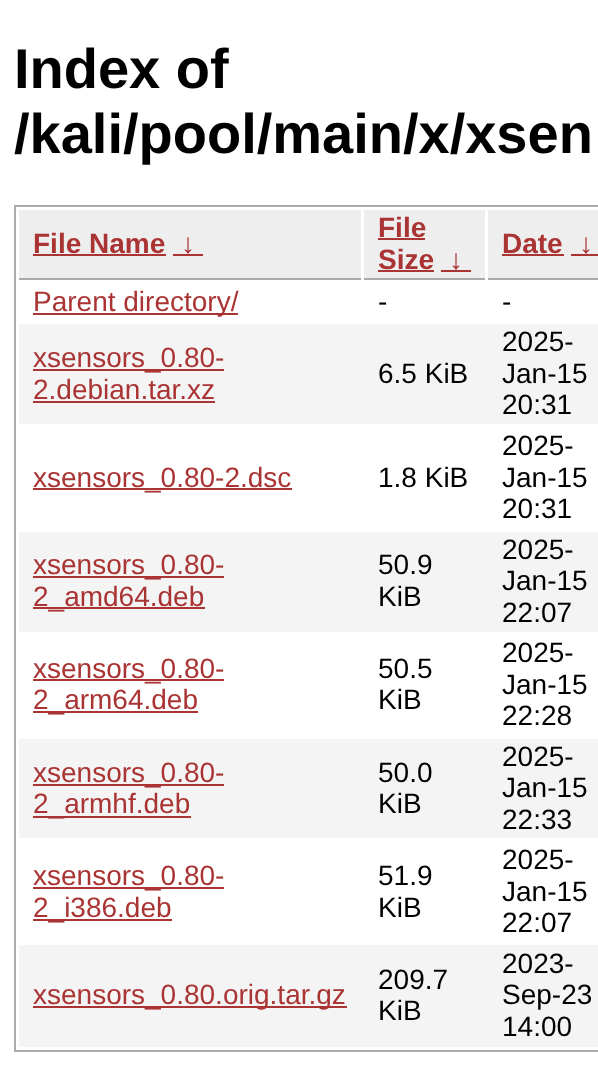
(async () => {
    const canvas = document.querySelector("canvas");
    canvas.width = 598;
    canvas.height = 1069;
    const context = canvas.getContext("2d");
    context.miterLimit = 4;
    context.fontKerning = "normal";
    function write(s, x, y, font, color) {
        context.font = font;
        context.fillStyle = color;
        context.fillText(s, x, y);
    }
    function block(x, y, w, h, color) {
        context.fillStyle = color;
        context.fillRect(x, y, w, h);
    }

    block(0, 0, 598, 1069, "rgb(255, 255, 255)");
    write("Index of", 14, 88, "bold 56px Liberation Sans", "rgb(0, 0, 0)");
    write("/kali/pool/main/x/xsen", 14, 153, "bold 56px Liberation Sans", "rgb(0, 0, 0)");
    context.strokeStyle = "rgb(170, 170, 170)";
    context.lineWidth = 2;
    context.strokeRect(15, 206, 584, 845);
    block(19, 210, 342, 68, "rgb(238, 238, 238)");
    block(19, 278, 342, 2, "rgb(170, 170, 170)");
    write("File Name", 33, 253, "bold 28px Liberation Sans", "rgb(170, 51, 51)");
    block(33, 254, 133, 2, "rgb(170, 51, 51)");
    write("↓", 181, 253, "bold 28px Liberation Sans", "rgb(170, 51, 51)");
    block(173, 254, 30, 2, "rgb(170, 51, 51)");
    block(364, 210, 121, 68, "rgb(238, 238, 238)");
    block(364, 278, 121, 2, "rgb(170, 170, 170)");
    write("File", 378, 237, "bold 28px Liberation Sans", "rgb(170, 51, 51)");
    block(378, 238, 47, 2, "rgb(170, 51, 51)");
    write("Size", 378, 269, "bold 28px Liberation Sans", "rgb(170, 51, 51)");
    block(378, 270, 56, 2, "rgb(170, 51, 51)");
    write("↓", 449, 269, "bold 28px Liberation Sans", "rgb(170, 51, 51)");
    block(441, 270, 30, 2, "rgb(170, 51, 51)");
    block(488, 210, 110, 68, "rgb(238, 238, 238)");
    block(488, 278, 110, 2, "rgb(170, 170, 170)");
    write("Date", 502, 253, "bold 28px Liberation Sans", "rgb(170, 51, 51)");
    block(502, 254, 62, 2, "rgb(170, 51, 51)");
    write("↓", 579, 253, "bold 28px Liberation Sans", "rgb(170, 51, 51)");
    block(571, 254, 27, 2, "rgb(170, 51, 51)");
    block(33, 313, 205, 2, "rgb(170, 51, 51)");
    write("Parent directory/", 33, 311, "28px Liberation Sans", "rgb(170, 51, 51)");
    write("-", 378, 311, "28px Liberation Sans", "rgb(0, 0, 0)");
    write("-", 502, 311, "28px Liberation Sans", "rgb(0, 0, 0)");
    block(19, 324, 579, 100, "rgb(244, 244, 244)");
    block(33, 369, 191, 2, "rgb(170, 51, 51)");
    write("xsensors_0.80-", 33, 367, "28px Liberation Sans", "rgb(170, 51, 51)");
    write("2.debian.tar.xz", 33, 399, "28px Liberation Sans", "rgb(170, 51, 51)");
    block(33, 401, 182, 2, "rgb(170, 51, 51)");
    write("6.5 KiB", 378, 383, "28px Liberation Sans", "rgb(0, 0, 0)");
    write("2025-", 502, 351, "28px Liberation Sans", "rgb(0, 0, 0)");
    write("Jan-15", 502, 383, "28px Liberation Sans", "rgb(0, 0, 0)");
    write("20:31", 502, 414, "28px Liberation Sans", "rgb(0, 0, 0)");
    block(33, 488, 259, 2, "rgb(170, 51, 51)");
    write("xsensors_0.80-2.dsc", 33, 487, "28px Liberation Sans", "rgb(170, 51, 51)");
    write("1.8 KiB", 378, 487, "28px Liberation Sans", "rgb(0, 0, 0)");
    write("2025-", 502, 455, "28px Liberation Sans", "rgb(0, 0, 0)");
    write("Jan-15", 502, 487, "28px Liberation Sans", "rgb(0, 0, 0)");
    write("20:31", 502, 518, "28px Liberation Sans", "rgb(0, 0, 0)");
    block(19, 532, 579, 100, "rgb(244, 244, 244)");
    block(33, 576, 191, 2, "rgb(170, 51, 51)");
    write("xsensors_0.80-", 33, 574, "28px Liberation Sans", "rgb(170, 51, 51)");
    block(33, 607, 172, 2, "rgb(170, 51, 51)");
    write("2_amd64.deb", 33, 606, "28px Liberation Sans", "rgb(170, 51, 51)");
    write("50.9", 378, 574, "28px Liberation Sans", "rgb(0, 0, 0)");
    write("KiB", 378, 606, "28px Liberation Sans", "rgb(0, 0, 0)");
    write("2025-", 502, 559, "28px Liberation Sans", "rgb(0, 0, 0)");
    write("Jan-15", 502, 590, "28px Liberation Sans", "rgb(0, 0, 0)");
    write("22:07", 502, 622, "28px Liberation Sans", "rgb(0, 0, 0)");
    block(33, 679, 191, 2, "rgb(170, 51, 51)");
    write("xsensors_0.80-", 33, 678, "28px Liberation Sans", "rgb(170, 51, 51)");
    block(33, 711, 165, 2, "rgb(170, 51, 51)");
    write("2_arm64.deb", 33, 709, "28px Liberation Sans", "rgb(170, 51, 51)");
    write("50.5", 378, 678, "28px Liberation Sans", "rgb(0, 0, 0)");
    write("KiB", 378, 709, "28px Liberation Sans", "rgb(0, 0, 0)");
    write("2025-", 502, 662, "28px Liberation Sans", "rgb(0, 0, 0)");
    write("Jan-15", 502, 694, "28px Liberation Sans", "rgb(0, 0, 0)");
    write("22:28", 502, 725, "28px Liberation Sans", "rgb(0, 0, 0)");
    block(19, 739, 579, 99, "rgb(244, 244, 244)");
    block(33, 784, 191, 2, "rgb(170, 51, 51)");
    write("xsensors_0.80-", 33, 782, "28px Liberation Sans", "rgb(170, 51, 51)");
    block(33, 816, 158, 2, "rgb(170, 51, 51)");
    write("2_armhf.deb", 33, 813, "28px Liberation Sans", "rgb(170, 51, 51)");
    write("50.0", 378, 782, "28px Liberation Sans", "rgb(0, 0, 0)");
    write("KiB", 378, 813, "28px Liberation Sans", "rgb(0, 0, 0)");
    write("2025-", 502, 766, "28px Liberation Sans", "rgb(0, 0, 0)");
    write("Jan-15", 502, 797, "28px Liberation Sans", "rgb(0, 0, 0)");
    write("22:33", 502, 829, "28px Liberation Sans", "rgb(0, 0, 0)");
    block(33, 887, 191, 2, "rgb(170, 51, 51)");
    write("xsensors_0.80-", 33, 885, "28px Liberation Sans", "rgb(170, 51, 51)");
    block(33, 919, 139, 2, "rgb(170, 51, 51)");
    write("2_i386.deb", 33, 917, "28px Liberation Sans", "rgb(170, 51, 51)");
    write("51.9", 378, 885, "28px Liberation Sans", "rgb(0, 0, 0)");
    write("KiB", 378, 917, "28px Liberation Sans", "rgb(0, 0, 0)");
    write("2025-", 502, 869, "28px Liberation Sans", "rgb(0, 0, 0)");
    write("Jan-15", 502, 901, "28px Liberation Sans", "rgb(0, 0, 0)");
    write("22:07", 502, 932, "28px Liberation Sans", "rgb(0, 0, 0)");
    block(19, 945, 579, 102, "rgb(244, 244, 244)");
    block(33, 1006, 314, 2, "rgb(170, 51, 51)");
    write("xsensors_0.80.orig.tar.gz", 33, 1004, "28px Liberation Sans", "rgb(170, 51, 51)");
    write("209.7", 378, 989, "28px Liberation Sans", "rgb(0, 0, 0)");
    write("KiB", 378, 1020, "28px Liberation Sans", "rgb(0, 0, 0)");
    write("2023-", 502, 973, "28px Liberation Sans", "rgb(0, 0, 0)");
    write("Sep-23", 502, 1004, "28px Liberation Sans", "rgb(0, 0, 0)");
    write("14:00", 502, 1036, "28px Liberation Sans", "rgb(0, 0, 0)");
})();
